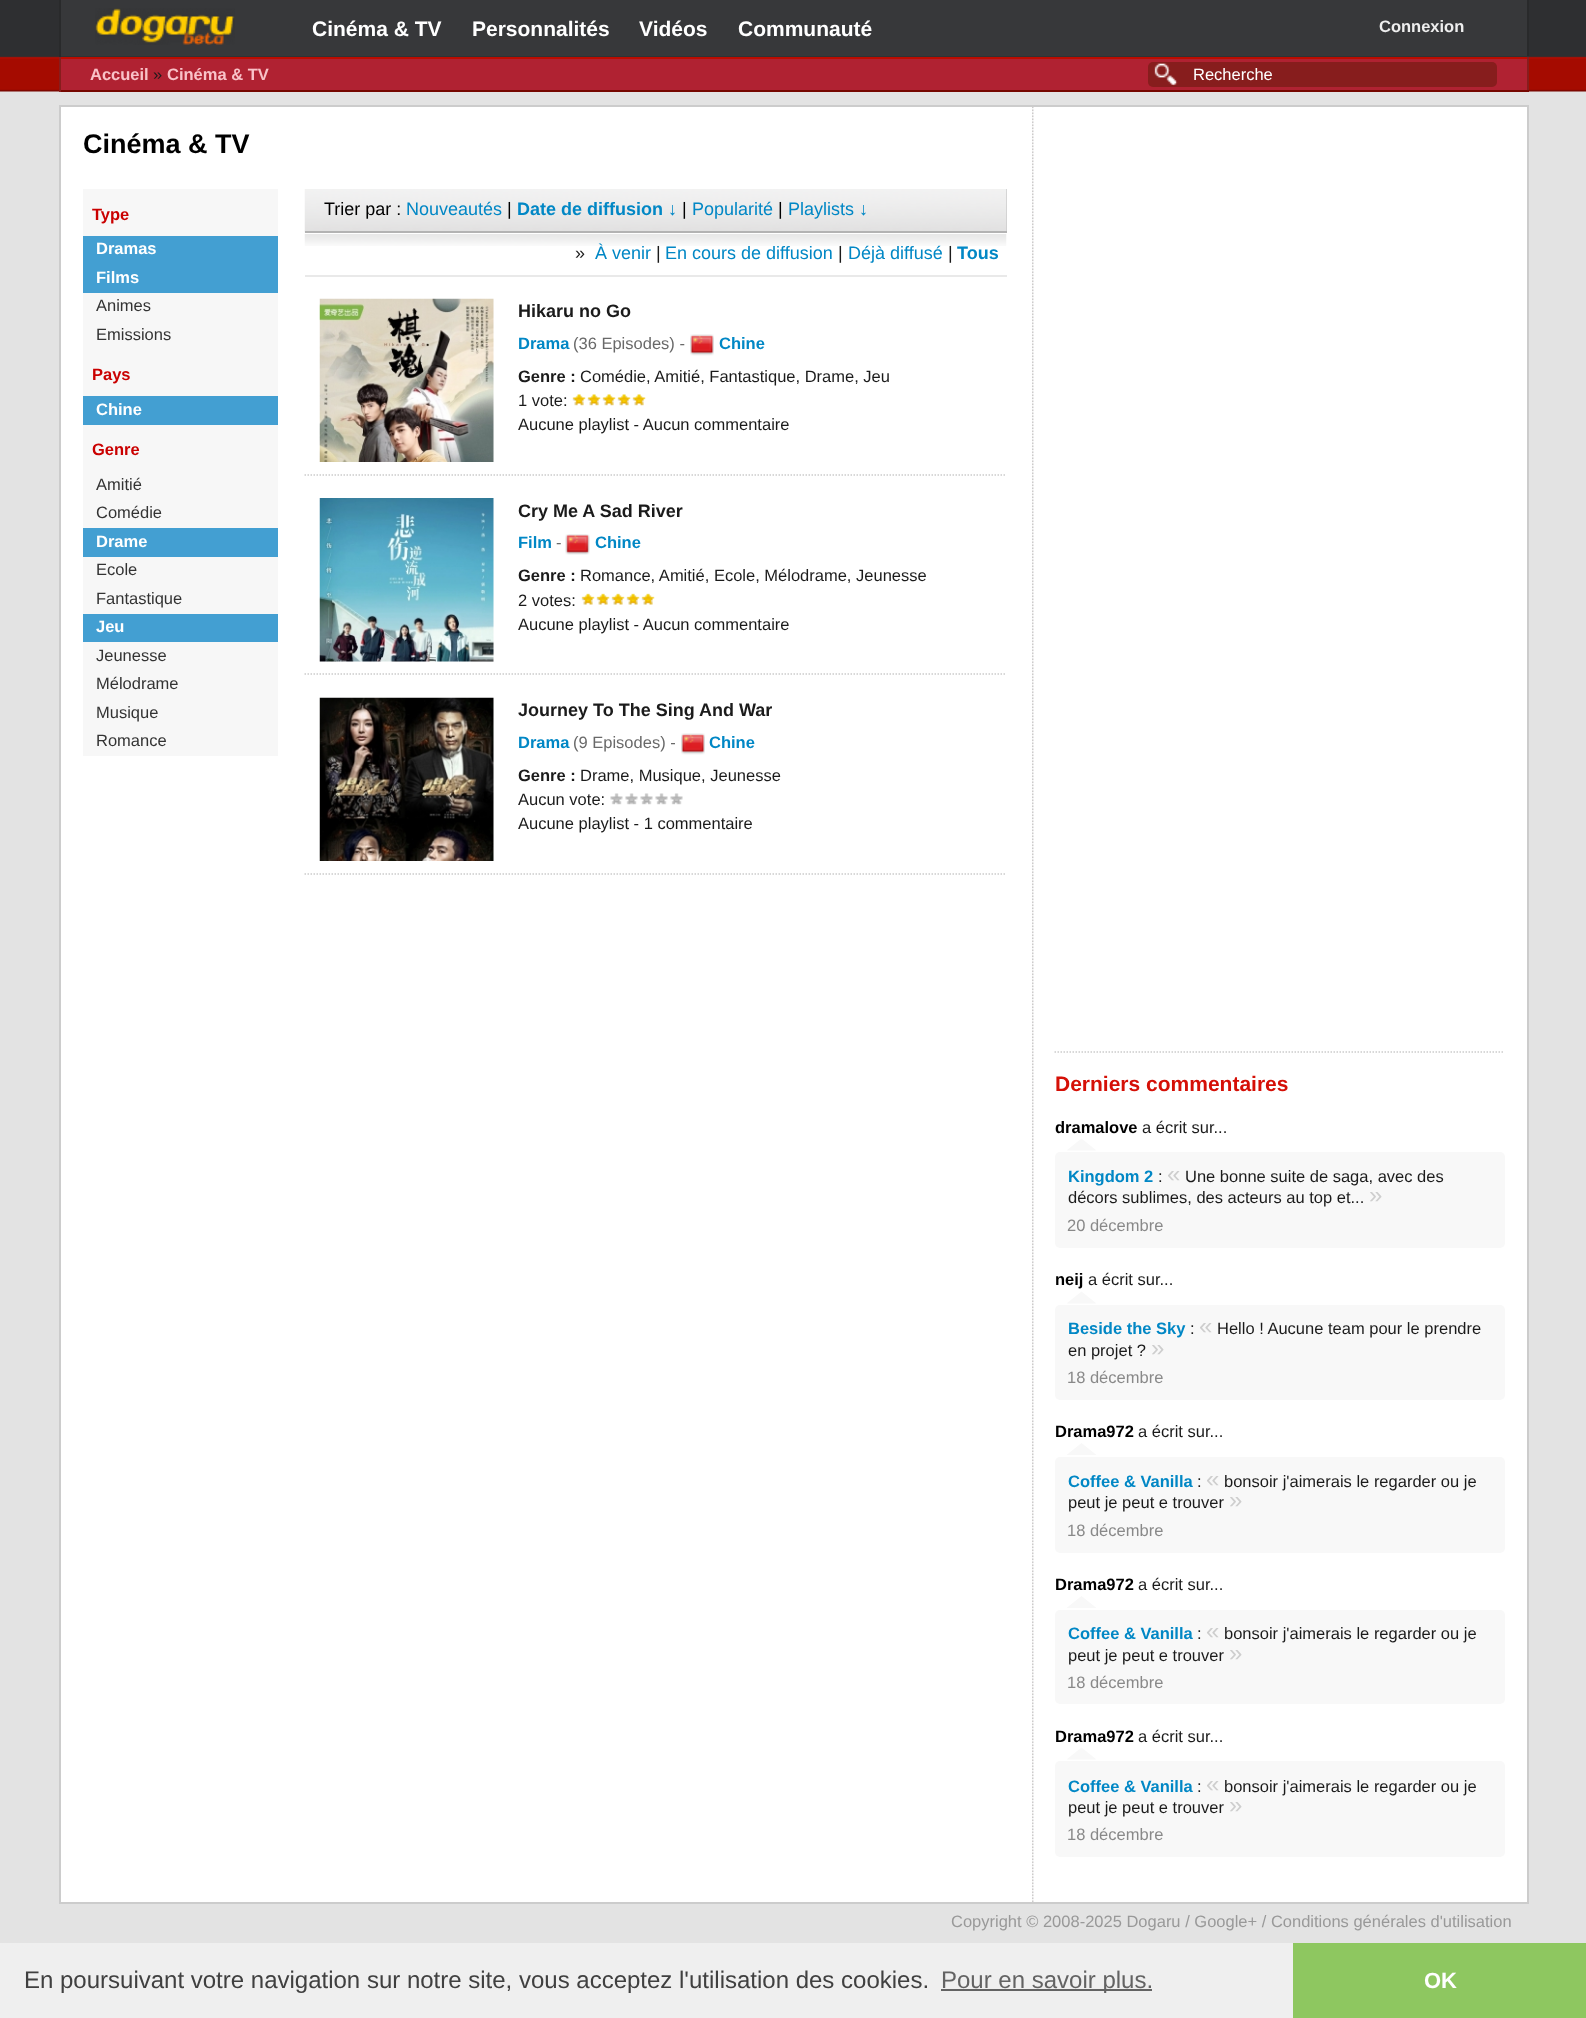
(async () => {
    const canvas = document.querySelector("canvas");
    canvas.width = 1586;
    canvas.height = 2018;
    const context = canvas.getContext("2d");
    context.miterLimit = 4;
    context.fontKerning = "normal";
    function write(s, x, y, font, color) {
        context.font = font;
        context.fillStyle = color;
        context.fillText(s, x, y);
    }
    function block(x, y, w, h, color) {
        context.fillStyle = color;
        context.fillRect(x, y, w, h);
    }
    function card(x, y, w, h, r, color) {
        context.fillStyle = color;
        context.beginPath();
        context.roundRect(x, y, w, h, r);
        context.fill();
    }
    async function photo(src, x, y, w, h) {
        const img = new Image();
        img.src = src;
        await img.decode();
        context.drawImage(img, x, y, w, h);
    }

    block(0, 0, 1586, 2018, "rgb(227, 227, 227)");
    await photo("media/1.png", 0, 0, 1586, 92);
    block(61, 0, 1466, 56, "rgb(55, 56, 58)");
    block(1527, 0, 2, 57, "rgb(41, 42, 43)");
    block(59, 56, 1470, 1, "rgb(49, 50, 51)");
    block(59, 0, 2, 57, "rgb(41, 42, 43)");
    await photo("media/2.png", 95, 8, 140, 37);
    write("Cinéma & TV", 312, 36, "bold 21px Liberation Sans", "rgb(255, 255, 255)");
    write("Personnalités", 472, 36, "bold 21px Liberation Sans", "rgb(255, 255, 255)");
    write("Vidéos", 639, 36, "bold 21px Liberation Sans", "rgb(255, 255, 255)");
    write("Communauté", 738, 36, "bold 21px Liberation Sans", "rgb(255, 255, 255)");
    write("Connexion", 1379, 32, "bold 16.5px Liberation Sans", "rgb(238, 238, 238)");
    block(61, 59, 1466, 31, "rgb(176, 34, 50)");
    block(59, 57, 1470, 2, "rgb(187, 12, 0)");
    block(1527, 57, 2, 35, "rgb(135, 29, 29)");
    block(59, 90, 1470, 2, "rgb(118, 7, 0)");
    block(59, 57, 2, 35, "rgb(135, 29, 29)");
    write("Accueil", 90, 80, "bold 16.5px Liberation Sans", "rgb(249, 194, 200)");
    write("»", 153, 80, "16.5px Liberation Sans", "rgb(27, 27, 27)");
    write("Cinéma & TV", 167, 80, "bold 16.5px Liberation Sans", "rgb(249, 194, 200)");
    card(1148, 62, 349, 25, 5, "rgb(135, 29, 29)");
    await photo("media/3.png", 1154, 63, 24, 23);
    write("Recherche", 1193, 80, "16.5px Liberation Sans", "rgb(255, 255, 255)");
    block(61, 107, 1466, 1795, "rgb(255, 255, 255)");
    await photo("media/4.png", 1032, 107, 2, 1795);
    context.strokeStyle = "rgb(204, 204, 204)";
    context.lineWidth = 2;
    context.strokeRect(60, 106, 1468, 1797);
    write("Cinéma & TV", 83, 153, "bold 27px Liberation Sans", "rgb(0, 0, 0)");
    block(83, 189, 195, 47, "rgb(247, 247, 247)");
    write("Type", 92, 220, "bold 16.5px Liberation Sans", "rgb(202, 0, 0)");
    block(83, 236, 195, 57, "rgb(67, 159, 210)");
    write("Dramas", 96, 254, "bold 16.5px Liberation Sans", "rgb(255, 255, 255)");
    write("Films", 96, 283, "bold 16.5px Liberation Sans", "rgb(255, 255, 255)");
    block(83, 293, 195, 57, "rgb(247, 247, 247)");
    write("Animes", 96, 311, "16.5px Liberation Sans", "rgb(51, 51, 51)");
    write("Emissions", 96, 340, "16.5px Liberation Sans", "rgb(51, 51, 51)");
    block(83, 350, 195, 46, "rgb(247, 247, 247)");
    write("Pays", 92, 380, "bold 16.5px Liberation Sans", "rgb(202, 0, 0)");
    block(83, 396, 195, 29, "rgb(67, 159, 210)");
    write("Chine", 96, 415, "bold 16.5px Liberation Sans", "rgb(255, 255, 255)");
    block(83, 425, 195, 103, "rgb(247, 247, 247)");
    write("Genre", 92, 455, "bold 16.5px Liberation Sans", "rgb(202, 0, 0)");
    write("Amitié", 96, 490, "16.5px Liberation Sans", "rgb(51, 51, 51)");
    write("Comédie", 96, 518, "16.5px Liberation Sans", "rgb(51, 51, 51)");
    block(83, 528, 195, 29, "rgb(67, 159, 210)");
    write("Drame", 96, 547, "bold 16.5px Liberation Sans", "rgb(255, 255, 255)");
    block(83, 557, 195, 57, "rgb(247, 247, 247)");
    write("Ecole", 96, 575, "16.5px Liberation Sans", "rgb(51, 51, 51)");
    write("Fantastique", 96, 604, "16.5px Liberation Sans", "rgb(51, 51, 51)");
    block(83, 614, 195, 28, "rgb(67, 159, 210)");
    write("Jeu", 96, 632, "bold 16.5px Liberation Sans", "rgb(255, 255, 255)");
    block(83, 642, 195, 114, "rgb(247, 247, 247)");
    write("Jeunesse", 96, 661, "16.5px Liberation Sans", "rgb(51, 51, 51)");
    write("Mélodrame", 96, 689, "16.5px Liberation Sans", "rgb(51, 51, 51)");
    write("Musique", 96, 718, "16.5px Liberation Sans", "rgb(51, 51, 51)");
    write("Romance", 96, 746, "16.5px Liberation Sans", "rgb(51, 51, 51)");
    block(1006, 189, 1, 42, "rgb(205, 204, 204)");
    await photo("media/5.png", 304, 189, 703, 44);
    block(305, 231, 702, 2, "rgb(179, 179, 179)");
    write("Trier par :", 324, 215, "18px Liberation Sans", "rgb(0, 0, 0)");
    write("Nouveautés", 406, 215, "18px Liberation Sans", "rgb(1, 135, 197)");
    write("|", 507, 215, "18px Liberation Sans", "rgb(0, 0, 0)");
    write("Date de diffusion ↓", 517, 215, "bold 18px Liberation Sans", "rgb(1, 135, 197)");
    write("|", 682, 215, "18px Liberation Sans", "rgb(0, 0, 0)");
    write("Popularité", 692, 215, "18px Liberation Sans", "rgb(1, 135, 197)");
    write("|", 778, 215, "18px Liberation Sans", "rgb(0, 0, 0)");
    write("Playlists ↓", 788, 215, "18px Liberation Sans", "rgb(1, 135, 197)");
    await photo("media/6.png", 304, 234, 703, 12);
    block(305, 275, 702, 2, "rgb(233, 233, 233)");
    write("»", 575, 259, "18px Liberation Sans", "rgb(27, 27, 27)");
    write("À venir", 595, 259, "18px Liberation Sans", "rgb(1, 135, 197)");
    write("|", 656, 259, "18px Liberation Sans", "rgb(27, 27, 27)");
    write("En cours de diffusion", 665, 259, "18px Liberation Sans", "rgb(1, 135, 197)");
    write("|", 838, 259, "18px Liberation Sans", "rgb(27, 27, 27)");
    write("Déjà diffusé", 848, 259, "18px Liberation Sans", "rgb(1, 135, 197)");
    write("|", 948, 259, "18px Liberation Sans", "rgb(27, 27, 27)");
    write("Tous", 957, 259, "bold 18px Liberation Sans", "rgb(1, 135, 197)");
    context.beginPath();
    context.moveTo(304.5, 475);
    context.lineTo(1006.5, 475);
    context.lineWidth = 1.5;
    context.setLineDash([1.5, 1.5]);
    context.stroke();
    await photo("media/7.png", 319, 298, 175, 164);
    write("Hikaru no Go", 518, 317, "bold 18px Liberation Sans", "rgb(27, 27, 27)");
    write("Drama", 518, 349, "bold 16.5px Liberation Sans", "rgb(1, 135, 197)");
    write("(36 Episodes) -", 573, 349, "16.5px Liberation Sans", "rgb(105, 105, 105)");
    await photo("media/8.png", 690, 334, 24, 22);
    write("Chine", 719, 349, "bold 16.5px Liberation Sans", "rgb(1, 135, 197)");
    write("Genre :", 518, 382, "bold 16.5px Liberation Sans", "rgb(27, 27, 27)");
    write("Comédie, Amitié, Fantastique, Drame, Jeu", 580, 382, "16.5px Liberation Sans", "rgb(27, 27, 27)");
    write("1 vote:", 518, 406, "16.5px Liberation Sans", "rgb(27, 27, 27)");
    await photo("media/9.png", 572, 394, 74, 12);
    write("Aucune playlist - Aucun commentaire", 518, 430, "16.5px Liberation Sans", "rgb(27, 27, 27)");
    context.beginPath();
    context.moveTo(304.5, 674);
    context.lineTo(1006.5, 674);
    context.stroke();
    await photo("media/10.png", 319, 498, 175, 164);
    write("Cry Me A Sad River", 518, 517, "bold 18px Liberation Sans", "rgb(27, 27, 27)");
    write("Film", 518, 548, "bold 16.5px Liberation Sans", "rgb(1, 135, 197)");
    write("-", 556, 548, "16.5px Liberation Sans", "rgb(105, 105, 105)");
    await photo("media/11.png", 565, 534, 25, 21);
    write("Chine", 595, 548, "bold 16.5px Liberation Sans", "rgb(1, 135, 197)");
    write("Genre :", 518, 581, "bold 16.5px Liberation Sans", "rgb(27, 27, 27)");
    write("Romance, Amitié, Ecole, Mélodrame, Jeunesse", 580, 581, "16.5px Liberation Sans", "rgb(27, 27, 27)");
    write("2 votes:", 518, 606, "16.5px Liberation Sans", "rgb(27, 27, 27)");
    await photo("media/12.png", 581, 593, 74, 12);
    write("Aucune playlist - Aucun commentaire", 518, 630, "16.5px Liberation Sans", "rgb(27, 27, 27)");
    context.beginPath();
    context.moveTo(304.5, 874);
    context.lineTo(1006.5, 874);
    context.stroke();
    await photo("media/13.png", 319, 697, 175, 164);
    write("Journey To The Sing And War", 518, 716, "bold 18px Liberation Sans", "rgb(27, 27, 27)");
    write("Drama", 518, 748, "bold 16.5px Liberation Sans", "rgb(1, 135, 197)");
    write("(9 Episodes) -", 573, 748, "16.5px Liberation Sans", "rgb(105, 105, 105)");
    await photo("media/8.png", 681, 733, 24, 22);
    write("Chine", 709, 748, "bold 16.5px Liberation Sans", "rgb(1, 135, 197)");
    write("Genre :", 518, 781, "bold 16.5px Liberation Sans", "rgb(27, 27, 27)");
    write("Drame, Musique, Jeunesse", 580, 781, "16.5px Liberation Sans", "rgb(27, 27, 27)");
    write("Aucun vote:", 518, 805, "16.5px Liberation Sans", "rgb(27, 27, 27)");
    await photo("media/14.png", 610, 793, 73, 12);
    write("Aucune playlist - 1 commentaire", 518, 829, "16.5px Liberation Sans", "rgb(27, 27, 27)");
    context.beginPath();
    context.moveTo(1054.5, 1052);
    context.lineTo(1504.5, 1052);
    context.stroke();
    write("Derniers commentaires", 1055, 1091, "bold 21px Liberation Sans", "rgb(213, 16, 7)");
    write("dramalove", 1055, 1133, "bold 16.5px Liberation Sans", "rgb(0, 0, 0)");
    write("a écrit sur...", 1142, 1133, "16.5px Liberation Sans", "rgb(27, 27, 27)");
    card(1055, 1152, 450, 96, 5, "rgb(248, 248, 248)");
    context.beginPath();
    context.moveTo(1096.5, 1150.5);
    context.lineTo(1066.5, 1150.5);
    context.lineTo(1081.5, 1138.5);
    context.closePath();
    context.fill();
    write("Kingdom 2", 1068, 1182, "bold 16.5px Liberation Sans", "rgb(1, 135, 197)");
    write(":", 1158, 1182, "16.5px Liberation Sans", "rgb(27, 27, 27)");
    write("«", 1167, 1182, "24px Liberation Sans", "rgb(206, 206, 206)");
    write("Une bonne suite de saga, avec des", 1185, 1182, "16.5px Liberation Sans", "rgb(27, 27, 27)");
    write("décors sublimes, des acteurs au top et...", 1068, 1203, "16.5px Liberation Sans", "rgb(27, 27, 27)");
    write("»", 1369, 1203, "24px Liberation Sans", "rgb(206, 206, 206)");
    write("20 décembre", 1067, 1231, "16.5px Liberation Sans", "rgb(137, 137, 137)");
    write("neij", 1055, 1285, "bold 16.5px Liberation Sans", "rgb(0, 0, 0)");
    write("a écrit sur...", 1088, 1285, "16.5px Liberation Sans", "rgb(27, 27, 27)");
    card(1055, 1305, 450, 95, 5, "rgb(248, 248, 248)");
    context.beginPath();
    context.moveTo(1096.5, 1303.5);
    context.lineTo(1066.5, 1303.5);
    context.lineTo(1081.5, 1291.5);
    context.closePath();
    context.fill();
    write("Beside the Sky", 1068, 1334, "bold 16.5px Liberation Sans", "rgb(1, 135, 197)");
    write(":", 1190, 1334, "16.5px Liberation Sans", "rgb(27, 27, 27)");
    write("«", 1199, 1334, "24px Liberation Sans", "rgb(206, 206, 206)");
    write("Hello ! Aucune team pour le prendre", 1217, 1334, "16.5px Liberation Sans", "rgb(27, 27, 27)");
    write("en projet ?", 1068, 1356, "16.5px Liberation Sans", "rgb(27, 27, 27)");
    write("»", 1151, 1356, "24px Liberation Sans", "rgb(206, 206, 206)");
    write("18 décembre", 1067, 1383, "16.5px Liberation Sans", "rgb(137, 137, 137)");
    write("Drama972", 1055, 1437, "bold 16.5px Liberation Sans", "rgb(0, 0, 0)");
    write("a écrit sur...", 1138, 1437, "16.5px Liberation Sans", "rgb(27, 27, 27)");
    card(1055, 1457, 450, 96, 5, "rgb(248, 248, 248)");
    context.beginPath();
    context.moveTo(1096.5, 1455);
    context.lineTo(1066.5, 1455);
    context.lineTo(1081.5, 1443);
    context.closePath();
    context.fill();
    write("Coffee & Vanilla", 1068, 1487, "bold 16.5px Liberation Sans", "rgb(1, 135, 197)");
    write(":", 1197, 1487, "16.5px Liberation Sans", "rgb(27, 27, 27)");
    write("«", 1206, 1487, "24px Liberation Sans", "rgb(206, 206, 206)");
    write("bonsoir j'aimerais le regarder ou je", 1224, 1487, "16.5px Liberation Sans", "rgb(27, 27, 27)");
    write("peut je peut e trouver", 1068, 1508, "16.5px Liberation Sans", "rgb(27, 27, 27)");
    write("»", 1229, 1508, "24px Liberation Sans", "rgb(206, 206, 206)");
    write("18 décembre", 1067, 1536, "16.5px Liberation Sans", "rgb(137, 137, 137)");
    write("Drama972", 1055, 1590, "bold 16.5px Liberation Sans", "rgb(0, 0, 0)");
    write("a écrit sur...", 1138, 1590, "16.5px Liberation Sans", "rgb(27, 27, 27)");
    card(1055, 1610, 450, 94, 5, "rgb(248, 248, 248)");
    context.beginPath();
    context.moveTo(1096.5, 1608);
    context.lineTo(1066.5, 1608);
    context.lineTo(1081.5, 1596);
    context.closePath();
    context.fill();
    write("Coffee & Vanilla", 1068, 1639, "bold 16.5px Liberation Sans", "rgb(1, 135, 197)");
    write(":", 1197, 1639, "16.5px Liberation Sans", "rgb(27, 27, 27)");
    write("«", 1206, 1639, "24px Liberation Sans", "rgb(206, 206, 206)");
    write("bonsoir j'aimerais le regarder ou je", 1224, 1639, "16.5px Liberation Sans", "rgb(27, 27, 27)");
    write("peut je peut e trouver", 1068, 1661, "16.5px Liberation Sans", "rgb(27, 27, 27)");
    write("»", 1229, 1661, "24px Liberation Sans", "rgb(206, 206, 206)");
    write("18 décembre", 1067, 1688, "16.5px Liberation Sans", "rgb(137, 137, 137)");
    write("Drama972", 1055, 1742, "bold 16.5px Liberation Sans", "rgb(0, 0, 0)");
    write("a écrit sur...", 1138, 1742, "16.5px Liberation Sans", "rgb(27, 27, 27)");
    card(1055, 1761, 450, 96, 5, "rgb(248, 248, 248)");
    context.beginPath();
    context.moveTo(1096.5, 1759.5);
    context.lineTo(1066.5, 1759.5);
    context.lineTo(1081.5, 1747.5);
    context.closePath();
    context.fill();
    write("Coffee & Vanilla", 1068, 1792, "bold 16.5px Liberation Sans", "rgb(1, 135, 197)");
    write(":", 1197, 1792, "16.5px Liberation Sans", "rgb(27, 27, 27)");
    write("«", 1206, 1792, "24px Liberation Sans", "rgb(206, 206, 206)");
    write("bonsoir j'aimerais le regarder ou je", 1224, 1792, "16.5px Liberation Sans", "rgb(27, 27, 27)");
    write("peut je peut e trouver", 1068, 1813, "16.5px Liberation Sans", "rgb(27, 27, 27)");
    write("»", 1229, 1813, "24px Liberation Sans", "rgb(206, 206, 206)");
    write("18 décembre", 1067, 1840, "16.5px Liberation Sans", "rgb(137, 137, 137)");
    write("Copyright © 2008-2025 Dogaru / Google+ / Conditions générales d'utilisation", 951, 1927, "16.5px Liberation Sans", "rgb(153, 153, 153)");
    block(0, 1943, 1293, 75, "rgb(239, 239, 239)");
    write("En poursuivant votre navigation sur notre site, vous acceptez l'utilisation des cookies.", 24, 1988, "24px Liberation Sans", "rgb(64, 64, 64)");
    block(941, 1989, 211, 2, "rgb(99, 99, 99)");
    write("Pour en savoir plus.", 941, 1988, "24px Liberation Sans", "rgb(99, 99, 99)");
    block(1293, 1943, 293, 75, "rgb(142, 199, 96)");
    write("OK", 1424, 1988, "bold 22px Liberation Sans", "rgb(255, 255, 255)");
})();
